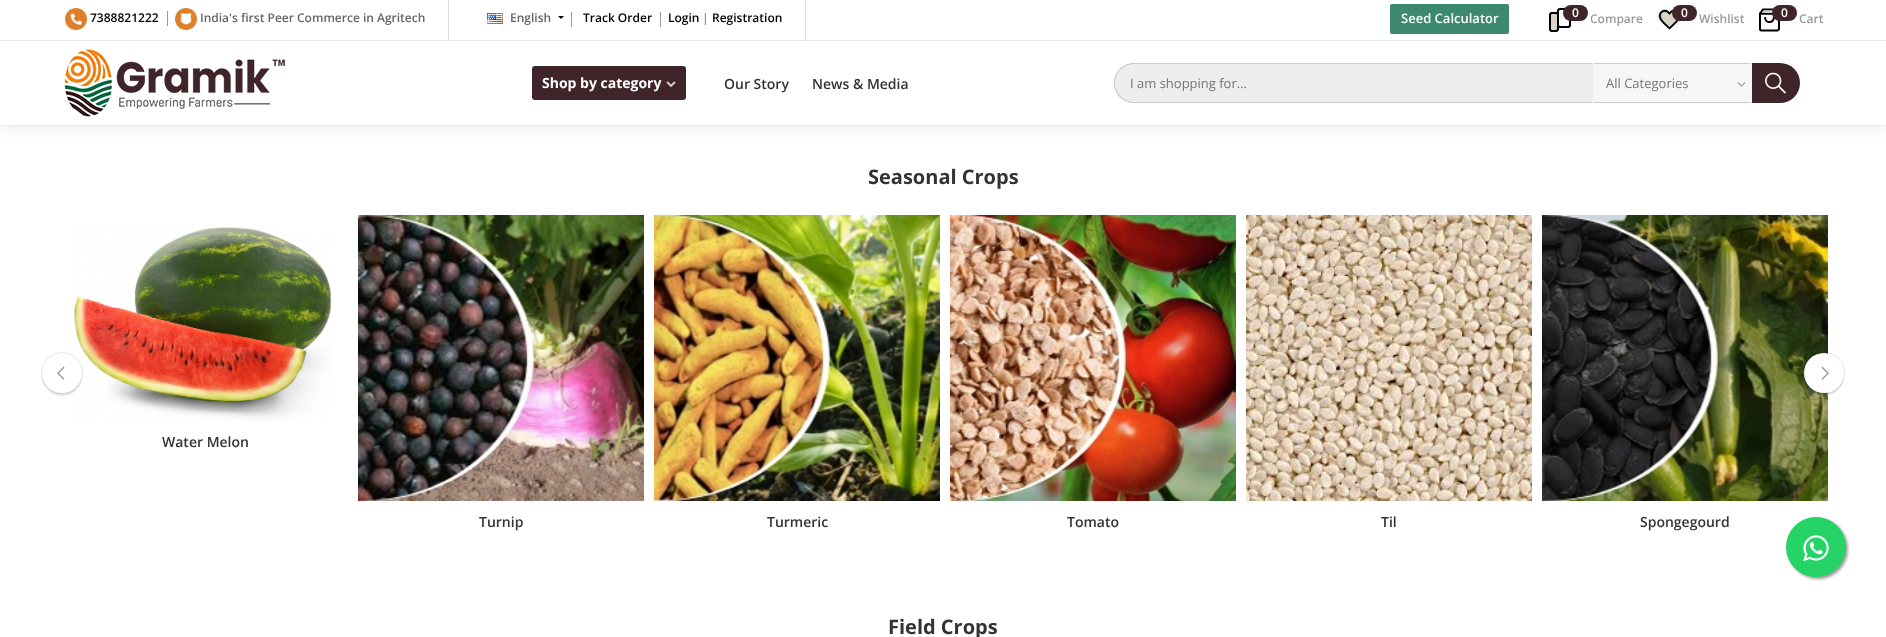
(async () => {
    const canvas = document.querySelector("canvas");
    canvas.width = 1886;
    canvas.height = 637;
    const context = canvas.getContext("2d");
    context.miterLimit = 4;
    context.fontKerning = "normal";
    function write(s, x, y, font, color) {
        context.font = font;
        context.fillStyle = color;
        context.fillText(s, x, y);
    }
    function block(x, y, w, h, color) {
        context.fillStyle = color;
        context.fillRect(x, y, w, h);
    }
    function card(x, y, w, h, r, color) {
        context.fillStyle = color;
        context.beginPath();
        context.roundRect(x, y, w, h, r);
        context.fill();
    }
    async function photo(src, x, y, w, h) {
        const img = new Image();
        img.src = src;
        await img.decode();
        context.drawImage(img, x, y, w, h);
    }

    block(0, 0, 1886, 637, "rgb(255, 255, 255)");
    context.fillStyle = "rgba(0, 0, 0, 0.1)";
    context.filter = "blur(10px)";
    context.beginPath();
    context.rect(0, -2, 1886, 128);
    context.fill();
    context.filter = "none";
    block(0, 0, 1886, 125, "rgb(255, 255, 255)");
    block(0, 125, 1886, 1, "rgb(233, 233, 233)");
    block(0, 40, 1886, 1, "rgb(233, 233, 233)");
    await photo("media/1.png", 65, 8, 22, 22);
    write("7388821222", 90, 22, "600 12px Open Sans", "rgb(0, 0, 0)");
    block(167, 11, 1, 15, "rgb(153, 153, 153)");
    await photo("media/2.png", 175, 8, 22, 22);
    write("India's first Peer Commerce in Agritech", 200, 22, "600 12px Open Sans", "rgb(102, 102, 102)");
    block(448, 0, 1, 40, "rgb(221, 221, 221)");
    await photo("media/3.png", 487, 13, 16, 11);
    write("English", 510, 22, "600 12px Open Sans", "rgb(102, 102, 102)");
    context.fillStyle = "rgb(0, 0, 0)";
    context.beginPath();
    context.moveTo(558, 16);
    context.lineTo(564, 16);
    context.lineTo(561, 19);
    context.closePath();
    context.fill();
    block(571, 12, 1, 15, "rgb(153, 153, 153)");
    write("Track Order", 583, 22, "600 12px Open Sans", "rgb(0, 0, 0)");
    block(660, 12, 1, 15, "rgb(153, 153, 153)");
    write("Login", 668, 22, "600 12px Open Sans", "rgb(0, 0, 0)");
    write("|", 702, 22, "12px Open Sans", "rgb(102, 102, 102)");
    write("Registration", 712, 22, "600 12px Open Sans", "rgb(0, 0, 0)");
    block(805, 0, 1, 41, "rgb(221, 221, 221)");
    card(1390, 4, 119, 30, 2, "rgb(60, 137, 112)");
    write("Seed Calculator", 1401, 23, "600 13px Open Sans", "rgb(255, 255, 255)");
    await photo("media/4.png", 1549, 8, 22, 24);
    card(1563, 5, 25, 16, 8, "rgb(63, 36, 41)");
    write("0", 1572, 17, "600 12px Open Sans", "rgb(255, 255, 255)");
    write("Compare", 1590, 23, "600 12px Open Sans", "rgb(153, 153, 153)");
    await photo("media/5.png", 1658, 9, 21, 21);
    card(1672, 5, 25, 16, 8, "rgb(63, 36, 41)");
    write("0", 1681, 17, "600 12px Open Sans", "rgb(255, 255, 255)");
    write("Wishlist", 1699, 23, "600 12px Open Sans", "rgb(153, 153, 153)");
    await photo("media/6.png", 1759, 8, 21, 24);
    card(1772, 5, 25, 16, 8, "rgb(63, 36, 41)");
    write("0", 1781, 17, "600 12px Open Sans", "rgb(255, 255, 255)");
    write("Cart", 1799, 23, "600 12px Open Sans", "rgb(153, 153, 153)");
    await photo("media/7.png", 64, 49, 221, 68);
    card(532, 66, 154, 34, 3, "rgb(63, 36, 41)");
    write("Shop by category", 542, 88, "bold 14px Open Sans", "rgb(255, 255, 255)");
    await photo("media/8.png", 666, 81, 10, 7);
    write("Our Story", 724, 89, "600 14px Open Sans", "rgb(51, 51, 51)");
    write("News & Media", 812, 89, "600 14px Open Sans", "rgb(51, 51, 51)");
    context.fillStyle = "rgb(238, 238, 238)";
    context.beginPath();
    context.roundRect(1114, 63, 478, 40, [20, 0, 0, 20]);
    context.fill();
    context.fillStyle = "rgb(203, 203, 203)";
    context.beginPath();
    context.moveTo(1134, 63);
    context.lineTo(1592, 63);
    context.lineTo(1592, 103);
    context.lineTo(1134, 103);
    context.bezierCurveTo(1123, 103, 1114, 94, 1114, 83);
    context.bezierCurveTo(1114, 72, 1123, 63, 1134, 63);
    context.closePath();
    context.moveTo(1134, 64);
    context.lineTo(1592, 64);
    context.lineTo(1592, 102);
    context.lineTo(1134, 102);
    context.bezierCurveTo(1124, 102, 1115, 93, 1115, 83);
    context.bezierCurveTo(1115, 73, 1124, 64, 1134, 64);
    context.closePath();
    context.fill("evenodd");
    write("I am shopping for...", 1130, 88, "13px Open Sans", "rgb(117, 117, 117)");
    card(1592, 63, 160, 40, 2, "rgb(246, 246, 246)");
    context.fillStyle = "rgb(203, 203, 203)";
    context.beginPath();
    context.moveTo(1594, 63);
    context.lineTo(1593, 64);
    context.lineTo(1750, 64);
    context.bezierCurveTo(1751, 64, 1752, 64, 1752, 65);
    context.bezierCurveTo(1752, 64, 1751, 63, 1750, 63);
    context.closePath();
    context.fill();
    context.beginPath();
    context.moveTo(1594, 103);
    context.lineTo(1750, 103);
    context.bezierCurveTo(1751, 103, 1752, 102, 1752, 101);
    context.bezierCurveTo(1752, 102, 1751, 102, 1750, 102);
    context.lineTo(1593, 102);
    context.closePath();
    context.fill();
    context.fillStyle = "rgb(238, 238, 238)";
    context.beginPath();
    context.moveTo(1592, 65);
    context.lineTo(1592, 101);
    context.lineTo(1592.5, 102.5);
    context.lineTo(1593, 102);
    context.lineTo(1593, 64);
    context.lineTo(1592.5, 63.5);
    context.closePath();
    context.fill();
    write("All Categories", 1606, 88, "13px Open Sans", "rgb(117, 117, 117)");
    await photo("media/9.png", 1737, 82, 9, 5);
    context.fillStyle = "rgb(63, 36, 41)";
    context.beginPath();
    context.roundRect(1752, 63, 48, 40, [0, 20, 20, 0]);
    context.fill();
    await photo("media/10.png", 1765, 72, 21, 22);
    write("Seasonal Crops", 868, 184, "bold 20px Open Sans", "rgb(51, 51, 51)");
    await photo("media/13.png", 73, 227, 259, 194);
    context.fillStyle = "rgba(20, 23, 28, 0.1)";
    context.filter = "blur(0.5px)";
    context.beginPath();
    context.roundRect(42, 356, 40, 40, 20);
    context.fill();
    context.filter = "none";
    context.filter = "blur(0.5px)";
    context.beginPath();
    context.roundRect(41, 352, 42, 42, 21);
    context.fill();
    context.filter = "none";
    context.fillStyle = "rgb(255, 255, 255)";
    context.beginPath();
    context.arc(62, 373, 20, 0, Math.PI * 2);
    context.fill();
    await photo("media/11.png", 57, 366, 8, 14);
    await photo("media/18.png", 1542, 215, 286, 286);
    context.fillStyle = "rgba(20, 23, 28, 0.1)";
    context.filter = "blur(0.5px)";
    context.beginPath();
    context.roundRect(1804, 356, 40, 40, 20);
    context.fill();
    context.filter = "none";
    context.filter = "blur(0.5px)";
    context.beginPath();
    context.roundRect(1803, 352, 42, 42, 21);
    context.fill();
    context.filter = "none";
    context.fillStyle = "rgb(255, 255, 255)";
    context.beginPath();
    context.arc(1824, 373, 20, 0, Math.PI * 2);
    context.fill();
    await photo("media/12.png", 1821, 366, 8, 14);
    write("Water Melon", 162, 447, "600 14px Open Sans", "rgb(51, 51, 51)");
    await photo("media/14.png", 358, 215, 286, 286);
    write("Turnip", 479, 527, "600 14px Open Sans", "rgb(51, 51, 51)");
    await photo("media/15.png", 654, 215, 286, 286);
    write("Turmeric", 767, 527, "600 14px Open Sans", "rgb(51, 51, 51)");
    await photo("media/16.png", 950, 215, 286, 286);
    write("Tomato", 1067, 527, "600 14px Open Sans", "rgb(51, 51, 51)");
    await photo("media/17.png", 1246, 215, 286, 286);
    write("Til", 1381, 527, "600 14px Open Sans", "rgb(51, 51, 51)");
    write("Spongegourd", 1640, 527, "600 14px Open Sans", "rgb(51, 51, 51)");
    write("Field Crops", 888, 634, "bold 20px Open Sans", "rgb(51, 51, 51)");
    context.fillStyle = "rgb(153, 153, 153)";
    context.filter = "blur(1.5px)";
    context.beginPath();
    context.roundRect(1788, 519, 60, 60, 30);
    context.fill();
    context.filter = "none";
    context.fillStyle = "rgb(37, 211, 102)";
    context.beginPath();
    context.arc(1816, 547, 30, 0, Math.PI * 2);
    context.fill();
    await photo("media/19.png", 1803, 535, 26, 27);
})();
